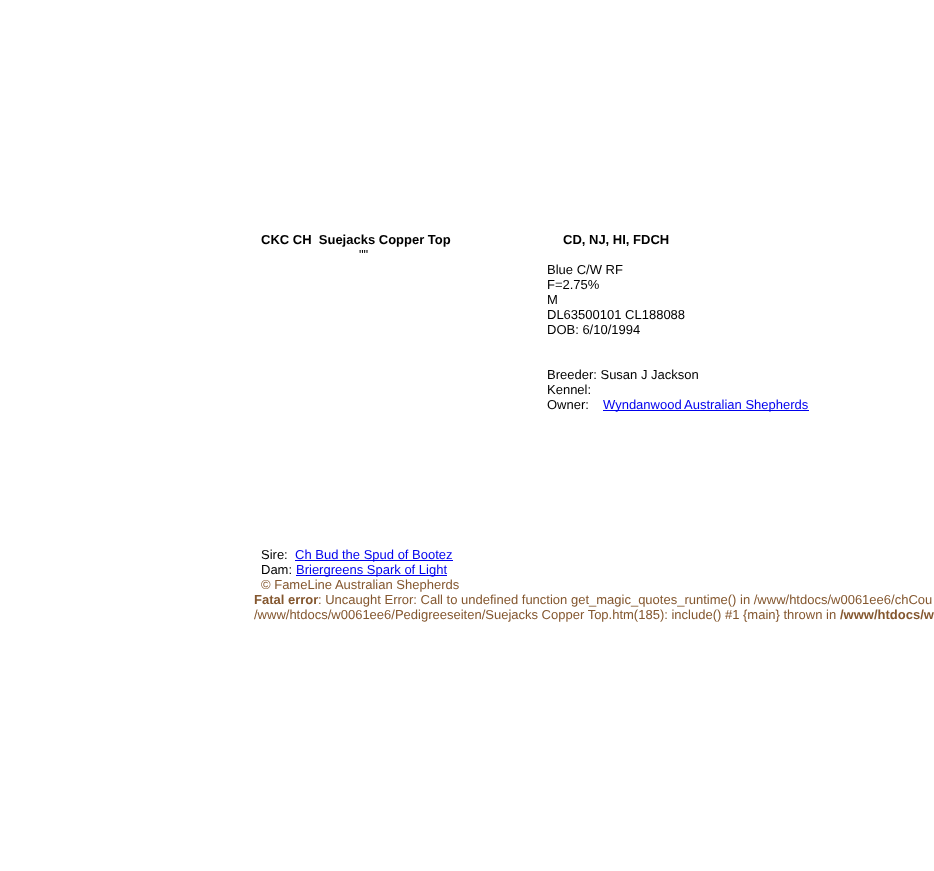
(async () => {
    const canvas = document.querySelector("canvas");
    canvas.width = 934;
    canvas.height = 871;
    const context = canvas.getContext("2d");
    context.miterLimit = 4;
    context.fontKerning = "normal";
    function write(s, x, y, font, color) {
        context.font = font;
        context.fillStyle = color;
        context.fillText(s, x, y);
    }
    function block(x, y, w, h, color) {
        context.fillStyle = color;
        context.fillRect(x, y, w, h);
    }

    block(0, 0, 934, 871, "rgb(255, 255, 255)");
    write("CKC CH  Suejacks Copper Top", 261, 244, "bold 13px Liberation Sans", "rgb(0, 0, 0)");
    write("CD, NJ, HI, FDCH", 563, 244, "bold 13px Liberation Sans", "rgb(0, 0, 0)");
    write("\"\"", 359, 259, "13px Liberation Sans", "rgb(0, 0, 0)");
    write("Blue C/W RF", 547, 274, "13px Liberation Sans", "rgb(0, 0, 0)");
    write("F=2.75%", 547, 289, "13px Liberation Sans", "rgb(0, 0, 0)");
    write("M", 547, 304, "13px Liberation Sans", "rgb(0, 0, 0)");
    write("DL63500101 CL188088", 547, 319, "13px Liberation Sans", "rgb(0, 0, 0)");
    write("DOB: 6/10/1994", 547, 334, "13px Liberation Sans", "rgb(0, 0, 0)");
    write("Breeder: Susan J Jackson", 547, 379, "13px Liberation Sans", "rgb(0, 0, 0)");
    write("Kennel:", 547, 394, "13px Liberation Sans", "rgb(0, 0, 0)");
    write("Owner:", 547, 409, "13px Liberation Sans", "rgb(0, 0, 0)");
    block(603, 410, 206, 1, "rgb(0, 0, 238)");
    write("Wyndanwood", 603, 409, "13px Liberation Sans", "rgb(0, 0, 238)");
    write("Australian Shepherds", 684, 409, "13px Liberation Sans", "rgb(0, 0, 238)");
    write("Sire:", 261, 559, "13px Liberation Sans", "rgb(0, 0, 0)");
    block(295, 560, 158, 1, "rgb(0, 0, 238)");
    write("Ch Bud the Spud of Bootez", 295, 559, "13px Liberation Sans", "rgb(0, 0, 238)");
    write("Dam:", 261, 574, "13px Liberation Sans", "rgb(0, 0, 0)");
    block(296, 575, 151, 1, "rgb(0, 0, 238)");
    write("Briergreens Spark of Light", 296, 574, "13px Liberation Sans", "rgb(0, 0, 238)");
    write("© FameLine Australian Shepherds", 261, 589, "13px Liberation Sans", "rgb(132, 87, 47)");
    write("Fatal error", 254, 604, "bold 13px Liberation Sans", "rgb(132, 87, 47)");
    write(": Uncaught Error: Call to undefined function get_magic_quotes_runtime() in /www/htdocs/w0061ee6/chCou", 318, 604, "13px Liberation Sans", "rgb(132, 87, 47)");
    write("/www/htdocs/w0061ee6/Pedigreeseiten/Suejacks Copper Top.htm(185): include() #1 {main} thrown in", 254, 619, "13px Liberation Sans", "rgb(132, 87, 47)");
    write("/www/htdocs/w", 840, 619, "bold 13px Liberation Sans", "rgb(132, 87, 47)");
})();
